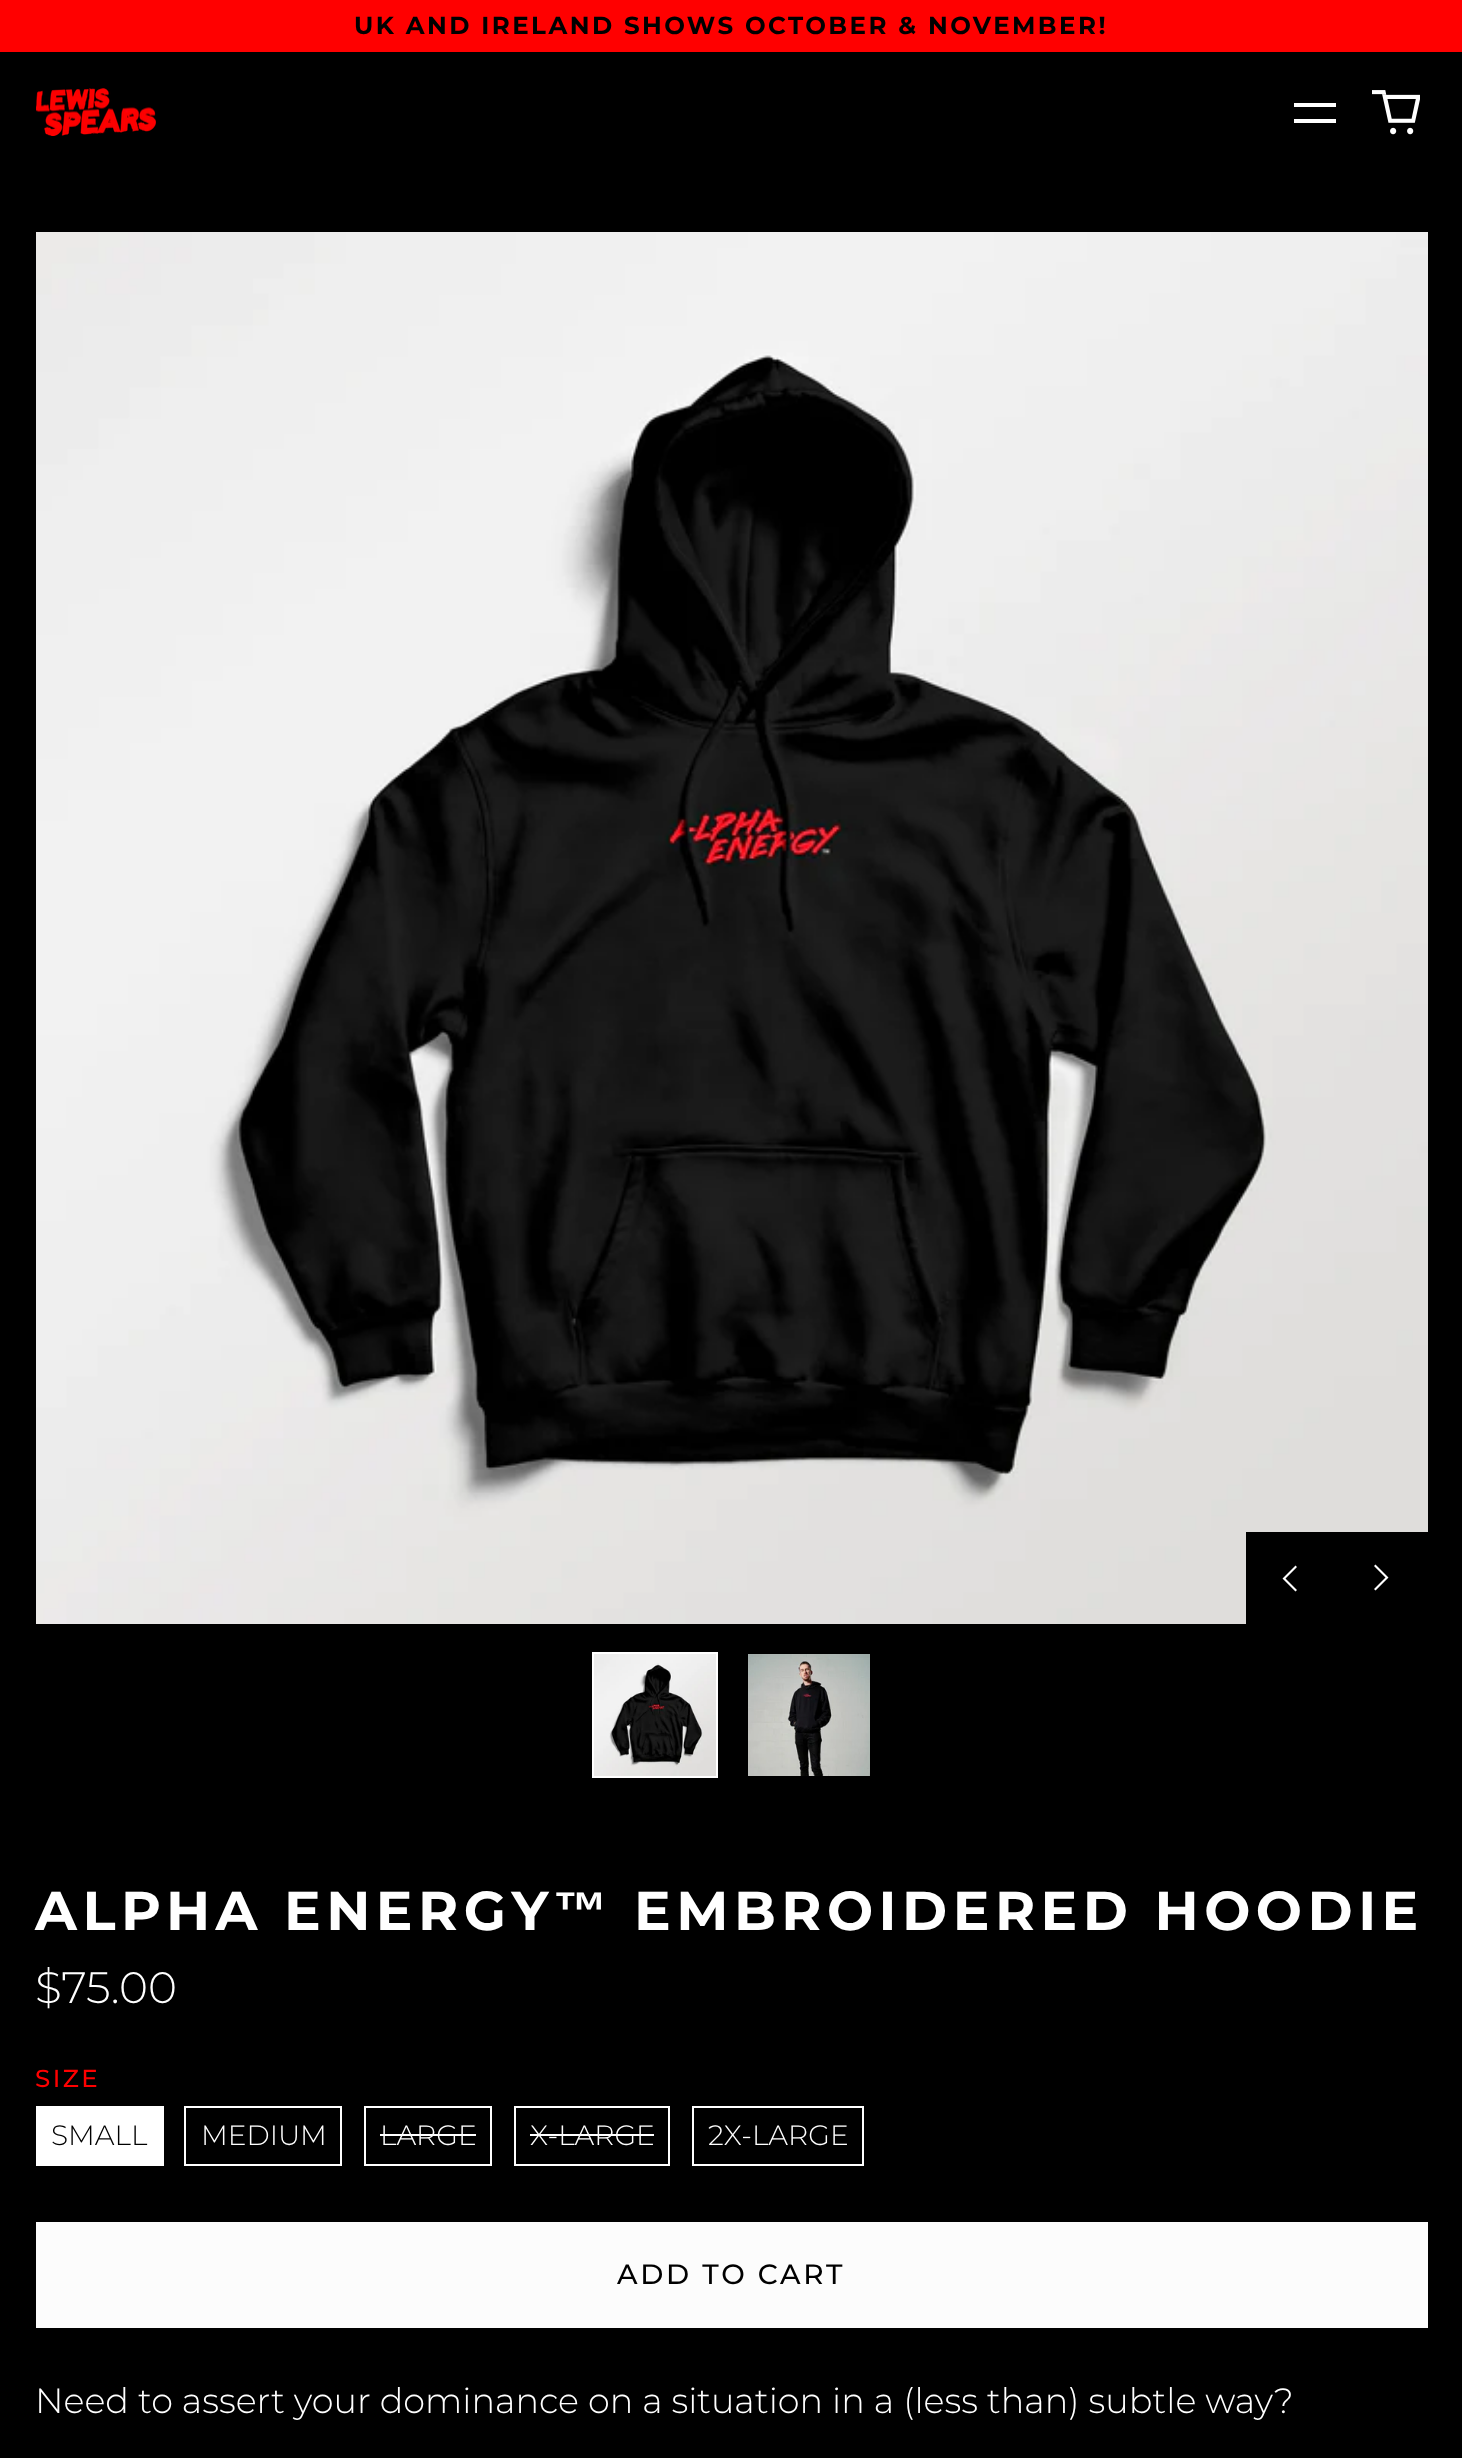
(async () => {
    const canvas = document.querySelector("canvas");
    canvas.width = 1462;
    canvas.height = 2458;
    const context = canvas.getContext("2d");
    context.miterLimit = 4;
    context.fontKerning = "normal";
    function write(s, x, y, font, color) {
        context.font = font;
        context.fillStyle = color;
        context.fillText(s, x, y);
    }
    function block(x, y, w, h, color) {
        context.fillStyle = color;
        context.fillRect(x, y, w, h);
    }
    async function photo(src, x, y, w, h) {
        const img = new Image();
        img.src = src;
        await img.decode();
        context.drawImage(img, x, y, w, h);
    }

    block(0, 0, 1462, 2458, "rgb(0, 0, 0)");
    block(0, 0, 1462, 52, "rgb(255, 0, 0)");
    context.letterSpacing = "2.45px";
    write("UK AND IRELAND SHOWS OCTOBER & NOVEMBER!", 354, 34, "bold 24.5px Montserrat", "rgb(0, 0, 0)");
    await photo("media/1.png", 36, 88, 120, 48);
    context.fillStyle = "rgb(255, 255, 255)";
    context.beginPath();
    context.moveTo(1336, 119);
    context.lineTo(1336, 123);
    context.lineTo(1294, 123);
    context.lineTo(1294, 119);
    context.closePath();
    context.moveTo(1336, 103);
    context.lineTo(1336, 107);
    context.lineTo(1294, 107);
    context.lineTo(1294, 103);
    context.closePath();
    context.fill("evenodd");
    await photo("media/2.png", 1372, 90, 48, 45);
    await photo("media/3.png", 36, 232, 1392, 1392);
    block(1246, 1532, 182, 92, "rgb(0, 0, 0)");
    context.fillStyle = "rgb(255, 255, 255)";
    context.beginPath();
    context.moveTo(1285.5, 1578.5);
    context.lineTo(1297, 1590);
    context.lineTo(1295.5, 1591.5);
    context.lineTo(1282.5, 1578.5);
    context.lineTo(1295.5, 1565.5);
    context.lineTo(1297, 1567);
    context.closePath();
    context.fill("evenodd");
    context.beginPath();
    context.moveTo(1385.5, 1577.5);
    context.lineTo(1374, 1566);
    context.lineTo(1375.5, 1564.5);
    context.lineTo(1388.5, 1577.5);
    context.lineTo(1375.5, 1590.5);
    context.lineTo(1374, 1589);
    context.closePath();
    context.fill("evenodd");
    context.strokeStyle = "rgb(255, 255, 255)";
    context.lineWidth = 2;
    context.strokeRect(593, 1653, 124, 124);
    await photo("media/4.png", 594, 1654, 122, 122);
    await photo("media/5.png", 748, 1654, 122, 122);
    context.letterSpacing = "5.5px";
    write("ALPHA ENERGY", 35, 1930, "bold 54.7px Montserrat", "rgb(255, 255, 255)");
    write("™", 553, 1930, "bold 54.7px Liberation Sans", "rgb(255, 255, 255)");
    write("EMBROIDERED HOODIE", 634, 1930, "bold 54.7px Montserrat", "rgb(255, 255, 255)");
    context.letterSpacing = "0px";
    write("$75.00", 35, 2003, "300 44px Montserrat", "rgb(255, 255, 255)");
    context.letterSpacing = "2.45px";
    write("SIZE", 35, 2087, "500 24.5px Montserrat", "rgb(255, 0, 0)");
    block(36, 2106, 128, 60, "rgb(255, 255, 255)");
    context.letterSpacing = "0px";
    write("SMALL", 51, 2145, "300 28px Montserrat", "rgb(0, 0, 0)");
    context.strokeRect(185, 2107, 156, 58);
    write("MEDIUM", 201, 2145, "300 28px Montserrat", "rgb(255, 255, 255)");
    context.strokeRect(365, 2107, 126, 58);
    write("LARGE", 380, 2145, "300 28px Montserrat", "rgb(255, 255, 255)");
    block(380, 2134, 96, 2, "rgb(255, 255, 255)");
    context.strokeRect(515, 2107, 154, 58);
    write("X-LARGE", 530, 2145, "300 28px Montserrat", "rgb(255, 255, 255)");
    block(530, 2134, 124, 2, "rgb(255, 255, 255)");
    context.strokeRect(693, 2107, 170, 58);
    write("2X-LARGE", 708, 2145, "300 28px Montserrat", "rgb(255, 255, 255)");
    block(36, 2222, 1392, 106, "rgb(252, 252, 252)");
    context.letterSpacing = "2.75px";
    write("ADD TO CART", 617, 2284, "500 28px Montserrat", "rgb(0, 0, 0)");
    context.letterSpacing = "0px";
    write("Need to assert your dominance on a situation in a (less than) subtle way?", 35, 2413, "300 35px Montserrat", "rgb(255, 255, 255)");
})();
